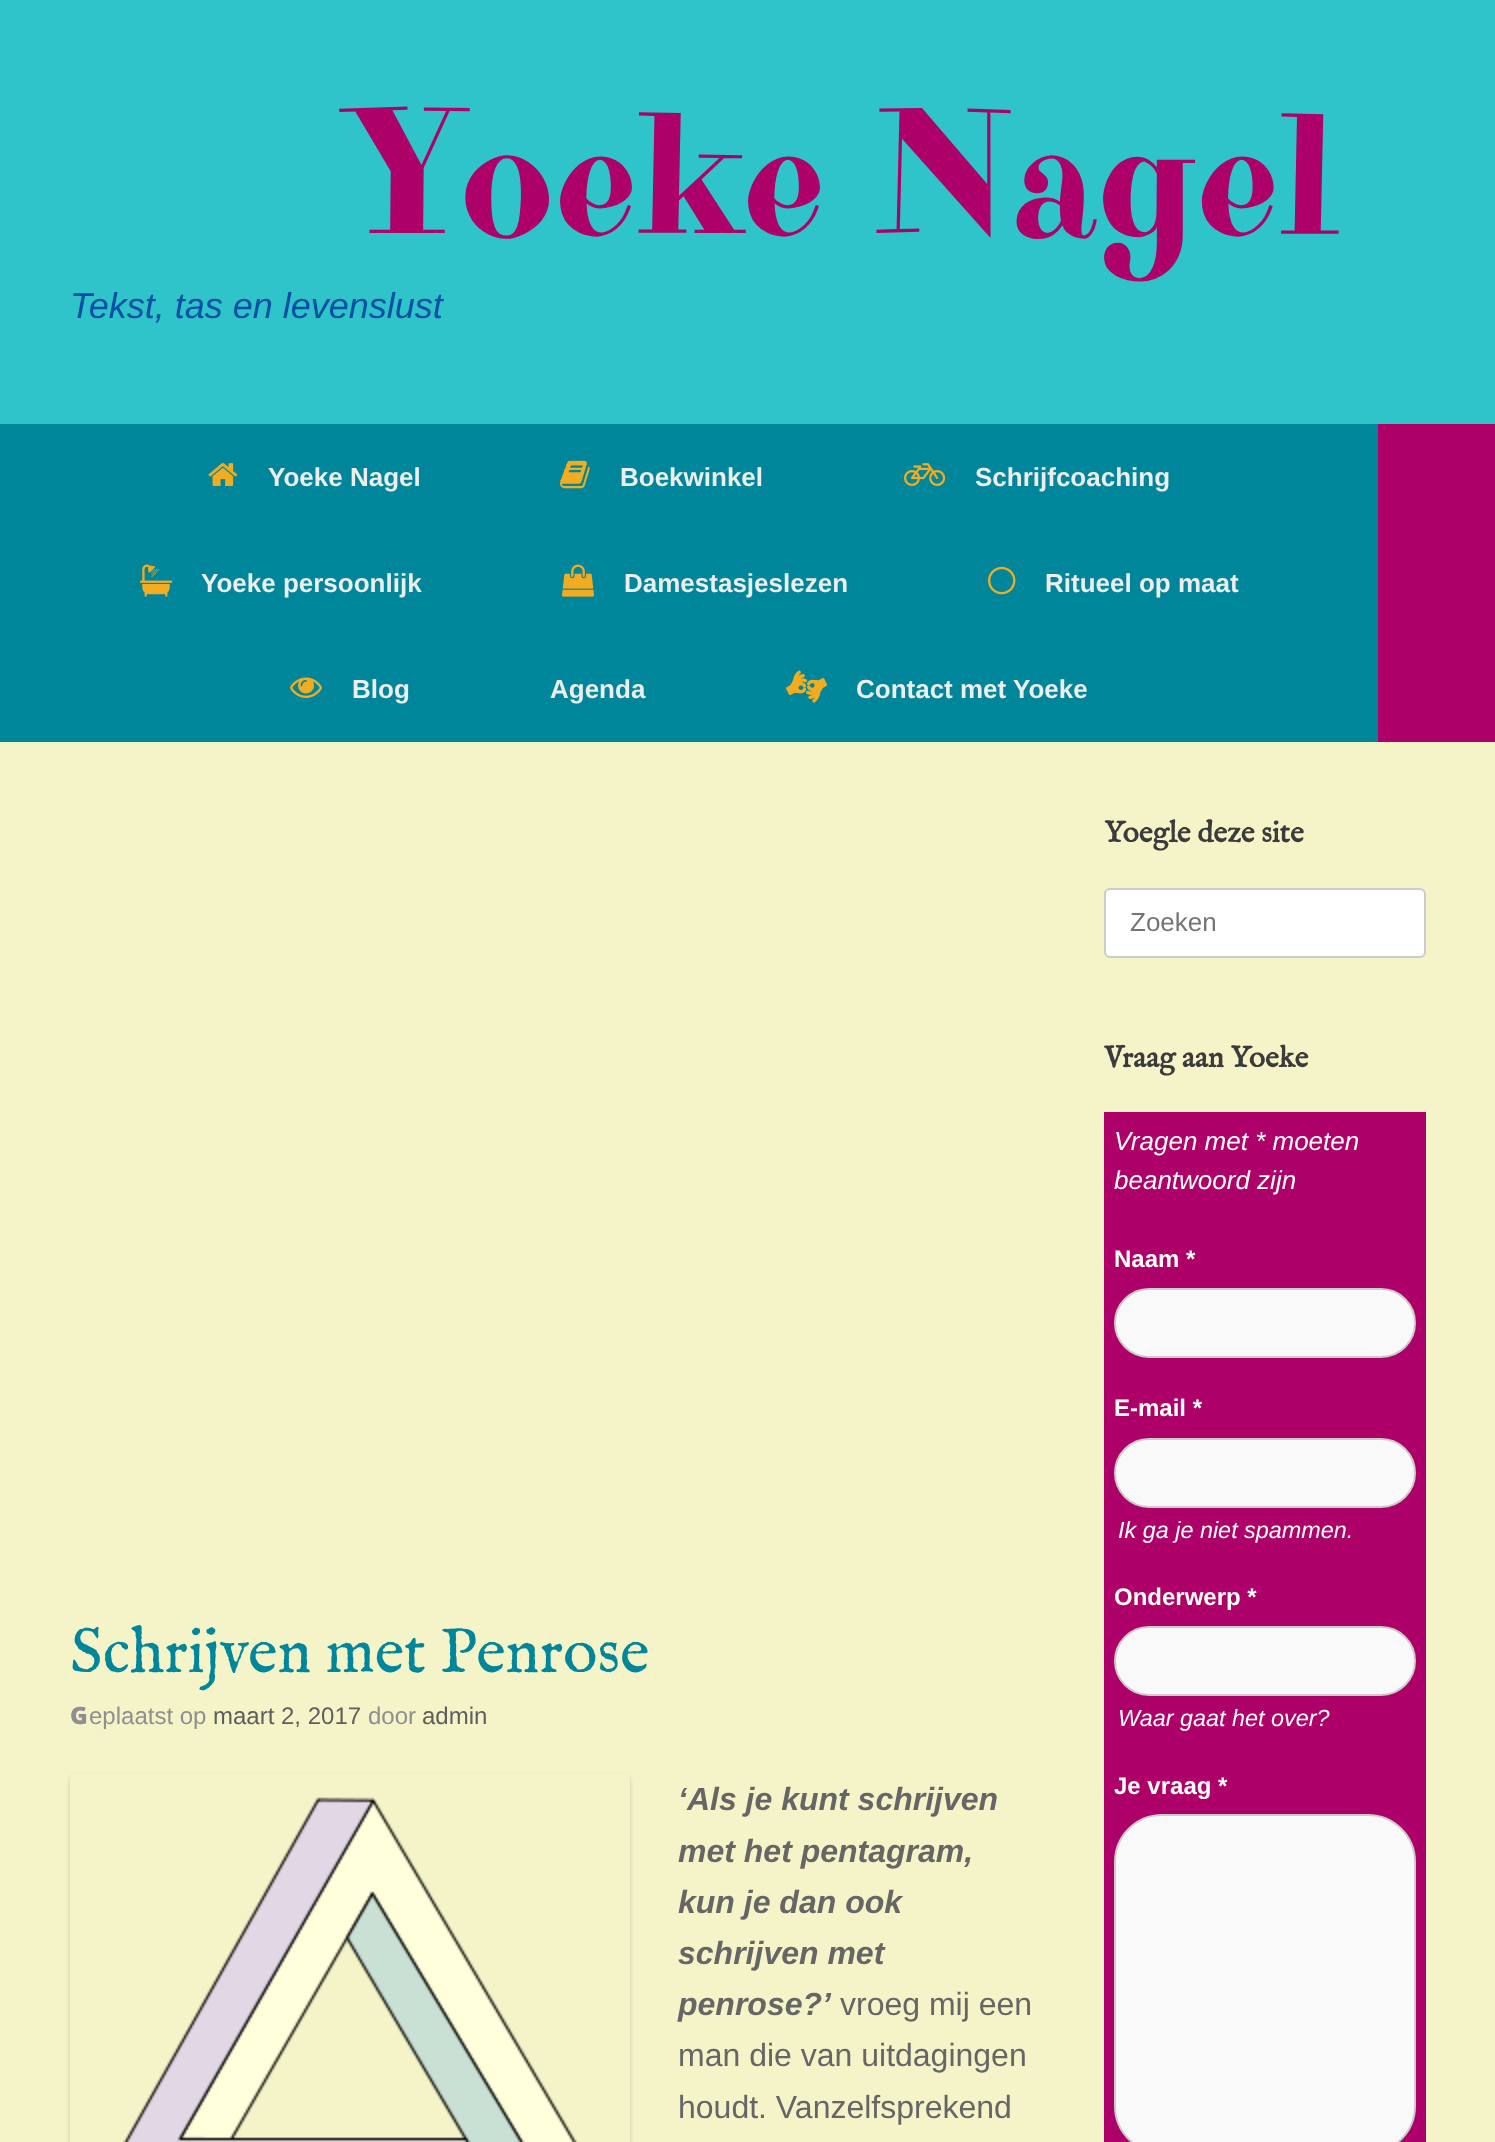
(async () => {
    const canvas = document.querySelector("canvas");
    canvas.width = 1495;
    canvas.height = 2142;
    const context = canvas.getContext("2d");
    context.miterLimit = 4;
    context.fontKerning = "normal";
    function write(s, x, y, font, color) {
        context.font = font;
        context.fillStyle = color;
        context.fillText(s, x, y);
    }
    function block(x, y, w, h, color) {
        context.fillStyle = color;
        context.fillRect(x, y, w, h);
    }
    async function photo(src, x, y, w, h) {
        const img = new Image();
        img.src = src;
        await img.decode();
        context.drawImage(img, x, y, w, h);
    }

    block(0, 0, 1495, 2142, "rgb(46, 196, 201)");
    write("Yoeke Nagel", 345, 232, "180px Purple Purse", "rgb(173, 0, 105)");
    write("Tekst, tas en levenslust", 70, 318, "italic 36px Liberation Sans", "rgb(1, 78, 165)");
    block(0, 424, 1378, 318, "rgb(0, 134, 155)");
    await photo("media/1.png", 208, 463, 30, 23);
    write("Yoeke Nagel", 268, 486, "bold 26px Liberation Sans", "rgb(237, 237, 237)");
    await photo("media/2.png", 560, 460, 30, 29);
    write("Boekwinkel", 620, 486, "bold 26px Liberation Sans", "rgb(237, 237, 237)");
    await photo("media/3.png", 904, 463, 42, 23);
    write("Schrijfcoaching", 975, 486, "bold 26px Liberation Sans", "rgb(237, 237, 237)");
    await photo("media/4.png", 140, 564, 32, 33);
    write("Yoeke persoonlijk", 201, 592, "bold 26px Liberation Sans", "rgb(237, 237, 237)");
    await photo("media/5.png", 562, 564, 32, 33);
    write("Damestasjeslezen", 624, 592, "bold 26px Liberation Sans", "rgb(237, 237, 237)");
    await photo("media/6.png", 988, 566, 28, 29);
    write("Ritueel op maat", 1045, 592, "bold 26px Liberation Sans", "rgb(237, 237, 237)");
    await photo("media/7.png", 290, 677, 32, 21);
    write("Blog", 352, 698, "bold 26px Liberation Sans", "rgb(237, 237, 237)");
    write("Agenda", 550, 698, "bold 26px Liberation Sans", "rgb(237, 237, 237)");
    await photo("media/8.png", 786, 670, 42, 33);
    write("Contact met Yoeke", 856, 698, "bold 26px Liberation Sans", "rgb(237, 237, 237)");
    block(1378, 424, 117, 318, "rgb(173, 0, 104)");
    block(0, 742, 1495, 1400, "rgb(244, 244, 200)");
    write("Yoegle deze site", 1104, 842, "bold 30px IM FELL English", "rgb(59, 59, 59)");
    context.fillStyle = "rgb(255, 255, 255)";
    context.beginPath();
    context.roundRect(1105, 889, 320, 68, 5);
    context.fill();
    context.strokeStyle = "rgb(204, 204, 204)";
    context.lineWidth = 2;
    context.stroke();
    write("Zoeken", 1130, 931, "26px Liberation Sans", "rgb(117, 117, 117)");
    write("Vraag aan Yoeke", 1104, 1067, "bold 30px IM FELL English", "rgb(59, 59, 59)");
    block(1104, 1112, 322, 1030, "rgb(173, 0, 105)");
    write("Vragen met * moeten", 1114, 1150, "italic 26px Liberation Sans", "rgb(255, 255, 255)");
    write("beantwoord zijn", 1114, 1189, "italic 26px Liberation Sans", "rgb(255, 255, 255)");
    write("Naam *", 1114, 1267, "bold 24px Liberation Sans", "rgb(254, 255, 249)");
    context.fillStyle = "rgb(249, 249, 249)";
    context.beginPath();
    context.roundRect(1115, 1289, 300, 68, 34);
    context.fill();
    context.stroke();
    write("E-mail *", 1114, 1416, "bold 24px Liberation Sans", "rgb(254, 255, 249)");
    context.fillStyle = "rgb(249, 249, 249)";
    context.beginPath();
    context.roundRect(1115, 1439, 300, 68, 34);
    context.fill();
    context.stroke();
    write("Ik ga je niet spammen.", 1118, 1538, "italic 23.4px Liberation Sans", "rgb(255, 255, 255)");
    write("Onderwerp *", 1114, 1605, "bold 24px Liberation Sans", "rgb(254, 255, 249)");
    context.fillStyle = "rgb(249, 249, 249)";
    context.beginPath();
    context.roundRect(1115, 1627, 300, 68, 34);
    context.fill();
    context.stroke();
    write("Waar gaat het over?", 1118, 1726, "italic 23.4px Liberation Sans", "rgb(255, 255, 255)");
    write("Je vraag *", 1114, 1794, "bold 24px Liberation Sans", "rgb(254, 255, 249)");
    context.fillStyle = "rgb(249, 249, 249)";
    context.beginPath();
    context.roundRect(1115, 1815, 300, 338, 47);
    context.fill();
    context.stroke();
    write("Schrijven met Penrose", 70, 1672, "64px IM FELL English", "rgb(0, 134, 155)");
    write("G", 70, 1724, "900 24px Noto Sans", "rgb(143, 143, 143)");
    write("eplaatst op", 89, 1724, "24px Liberation Sans", "rgb(143, 143, 143)");
    write("maart 2, 2017", 213, 1724, "24px Liberation Sans", "rgb(94, 94, 94)");
    write("door", 368, 1724, "24px Liberation Sans", "rgb(143, 143, 143)");
    write("admin", 422, 1724, "24px Liberation Sans", "rgb(94, 94, 94)");
    context.save();
    context.beginPath();
    context.moveTo(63, 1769);
    context.lineTo(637, 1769);
    context.lineTo(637, 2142);
    context.lineTo(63, 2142);
    context.closePath();
    context.moveTo(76, 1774);
    context.lineTo(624, 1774);
    context.bezierCurveTo(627.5, 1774, 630, 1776.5, 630, 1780);
    context.lineTo(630, 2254);
    context.bezierCurveTo(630, 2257.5, 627.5, 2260, 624, 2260);
    context.lineTo(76, 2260);
    context.bezierCurveTo(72.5, 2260, 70, 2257.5, 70, 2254);
    context.lineTo(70, 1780);
    context.bezierCurveTo(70, 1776.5, 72.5, 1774, 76, 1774);
    context.closePath();
    context.clip("evenodd");
    context.fillStyle = "rgba(0, 0, 0, 0.18)";
    context.filter = "blur(2px)";
    context.beginPath();
    context.roundRect(70, 1776, 560, 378, 6);
    context.fill();
    context.filter = "none";
    context.restore();
    await photo("media/9.png", 123, 1797, 455, 345);
    write("‘Als je kunt schrijven", 678, 1810, "italic bold 32px Liberation Sans", "rgb(102, 102, 102)");
    write("met het pentagram,", 678, 1862, "italic bold 32px Liberation Sans", "rgb(102, 102, 102)");
    write("kun je dan ook", 678, 1913, "italic bold 32px Liberation Sans", "rgb(102, 102, 102)");
    write("schrijven met", 678, 1964, "italic bold 32px Liberation Sans", "rgb(102, 102, 102)");
    write("penrose?’", 678, 2015, "italic bold 32px Liberation Sans", "rgb(102, 102, 102)");
    write("vroeg mij een", 840, 2015, "32px Liberation Sans", "rgb(102, 102, 102)");
    write("man die van uitdagingen", 678, 2066, "32px Liberation Sans", "rgb(102, 102, 102)");
    write("houdt. Vanzelfsprekend", 678, 2118, "32px Liberation Sans", "rgb(102, 102, 102)");
})();
